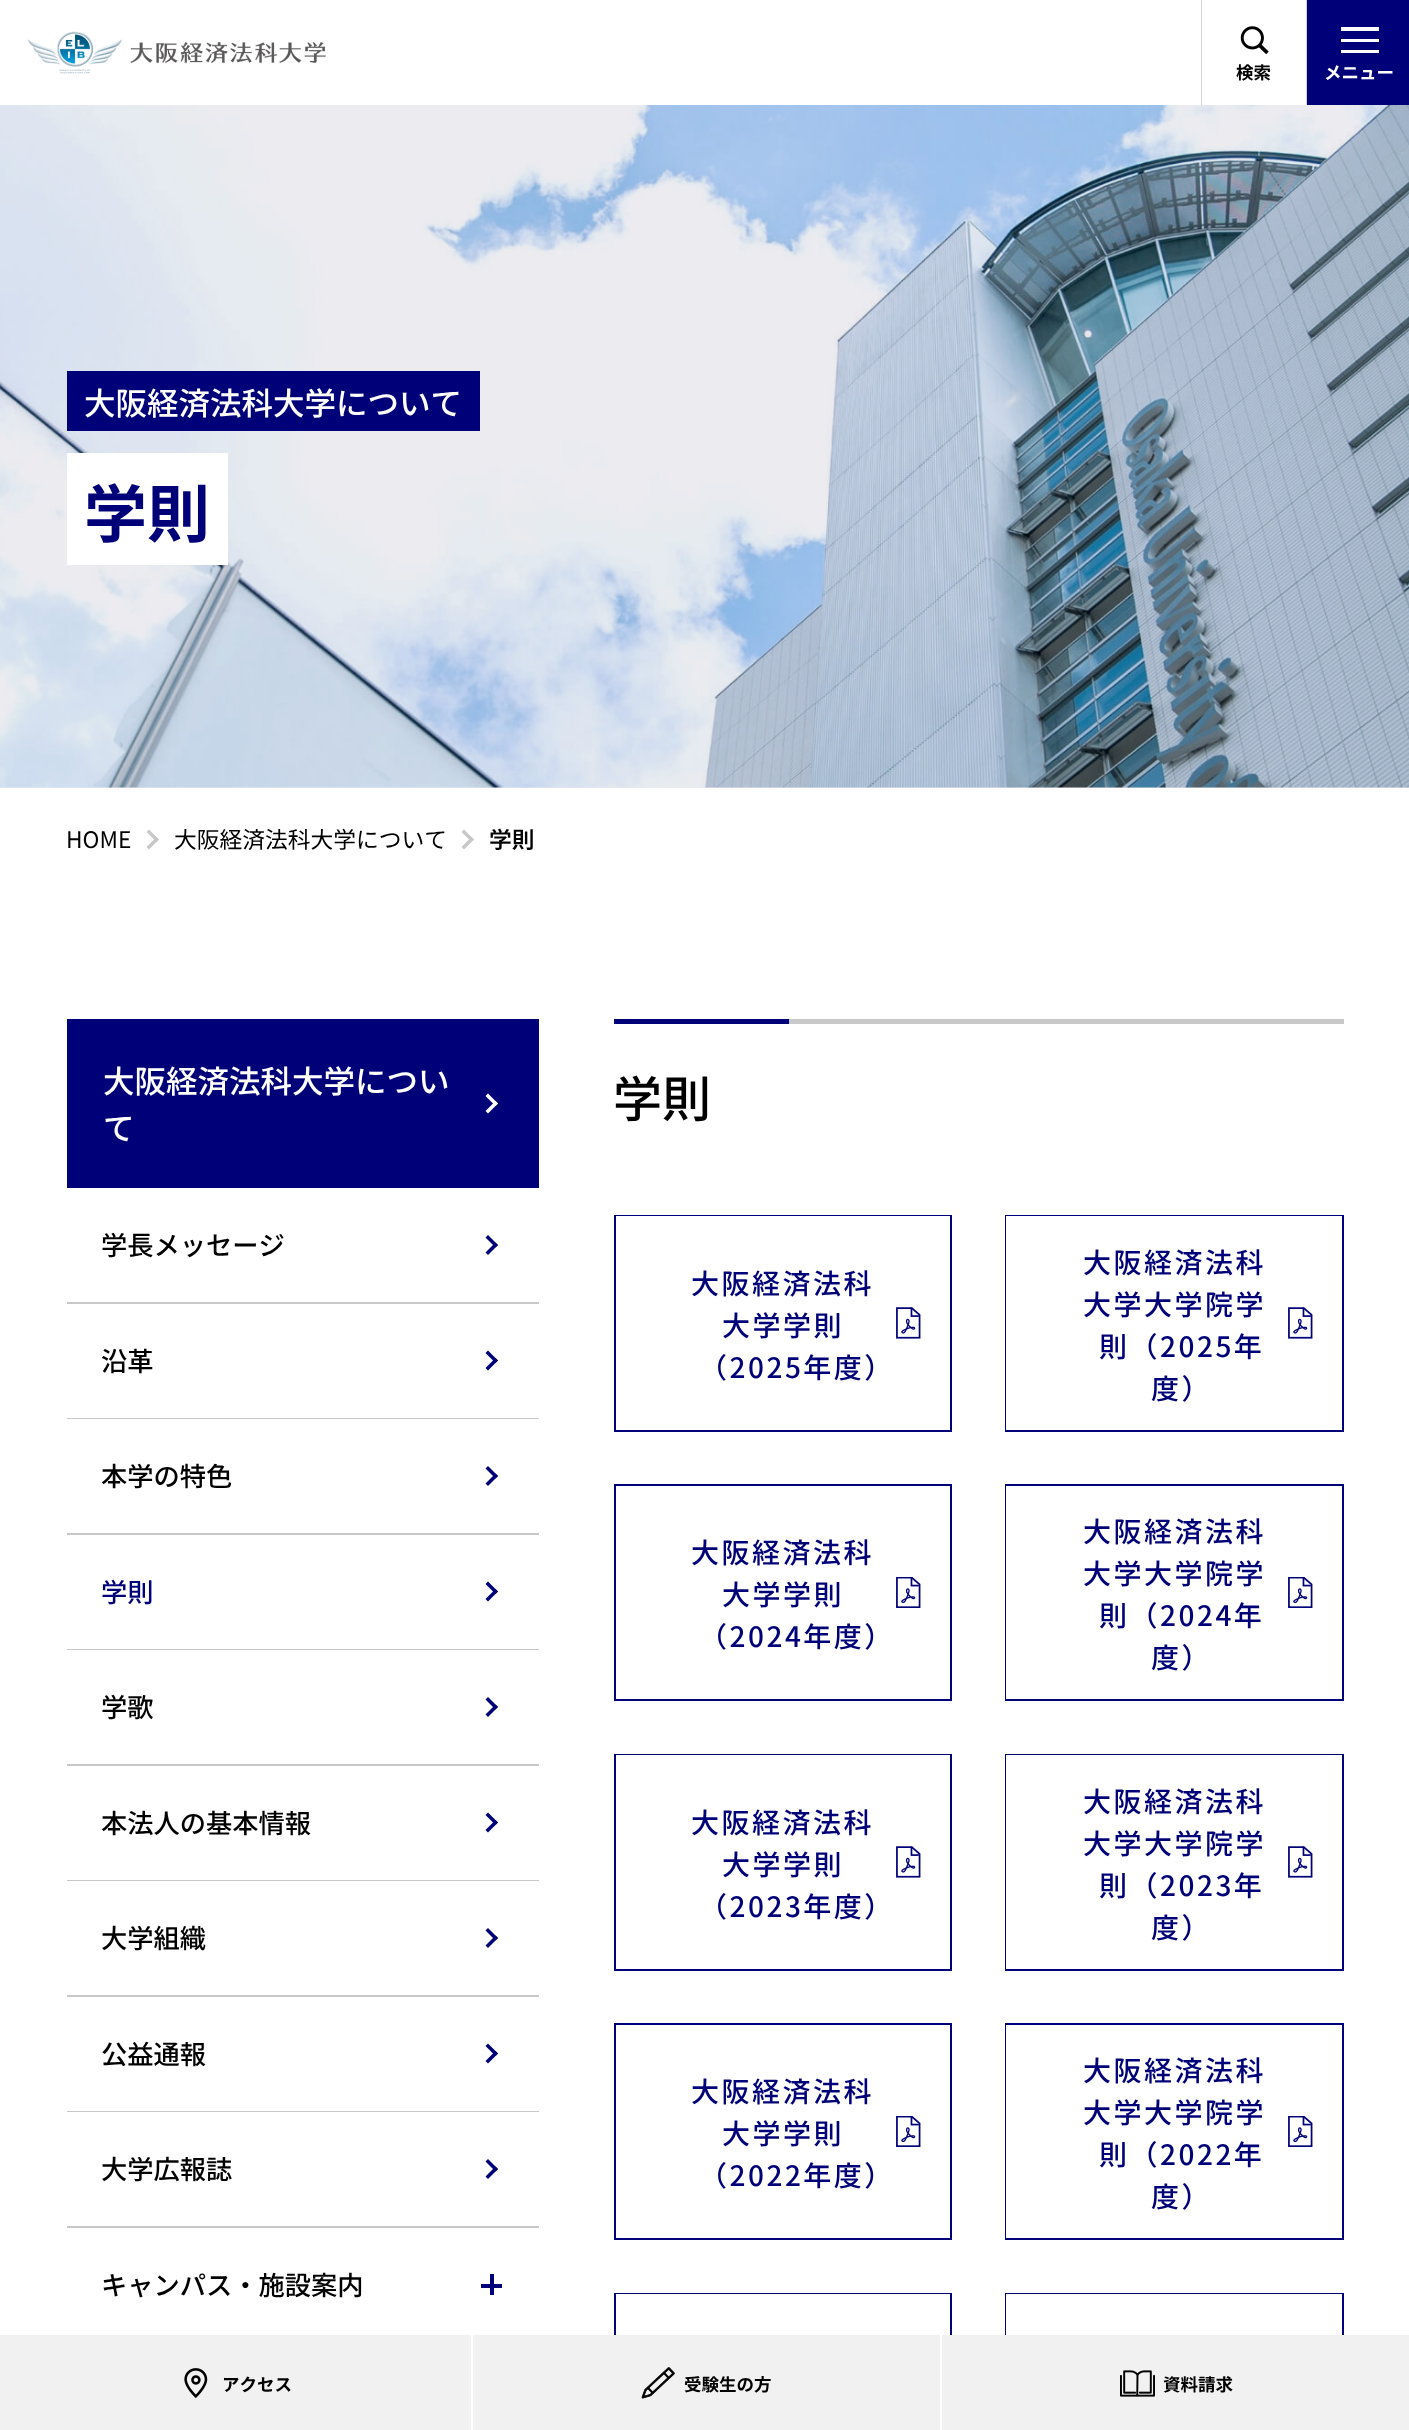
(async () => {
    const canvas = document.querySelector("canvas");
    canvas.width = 1409;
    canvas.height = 2430;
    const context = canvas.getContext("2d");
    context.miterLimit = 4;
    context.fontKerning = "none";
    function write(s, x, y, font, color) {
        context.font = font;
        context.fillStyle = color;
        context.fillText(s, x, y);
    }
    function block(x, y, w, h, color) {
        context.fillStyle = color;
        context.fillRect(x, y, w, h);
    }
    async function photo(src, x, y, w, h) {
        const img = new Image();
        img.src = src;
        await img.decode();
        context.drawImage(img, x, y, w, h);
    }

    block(0, 0, 1409, 2430, "rgb(255, 255, 255)");
    block(0, 787, 1409, 1, "rgb(235, 235, 240)");
    await photo("media/1.png", 28, 31, 298, 43);
    block(1201, 0, 1, 105, "rgb(210, 210, 216)");
    await photo("media/2.png", 1240, 26, 29, 28);
    write("検索", 1236, 79, "bold 17.5px Noto Sans JP", "rgb(0, 0, 0)");
    block(1306, 0, 1, 105, "rgb(210, 210, 216)");
    block(1307, 0, 102, 105, "rgb(0, 0, 120)");
    block(1341, 50, 38, 3, "rgb(255, 255, 255)");
    block(1341, 39, 38, 3, "rgb(255, 255, 255)");
    block(1341, 27, 38, 4, "rgb(255, 255, 255)");
    write("メニュー", 1324, 79, "bold 17.5px Noto Sans JP", "rgb(255, 255, 255)");
    await photo("media/3.png", 0, 105, 1409, 683);
    block(67, 371, 413, 60, "rgb(0, 0, 120)");
    write("大阪経済法科大学について", 84, 415, "500 31.5px Noto Sans JP", "rgb(255, 255, 255)");
    block(67, 453, 161, 112, "rgb(255, 255, 255)");
    write("学則", 84, 537, "bold 63px Noto Sans JP", "rgb(0, 0, 120)");
    write("HOME", 66, 848, "22.75px Noto Sans JP", "rgb(0, 0, 0)");
    context.fillStyle = "rgb(200, 200, 200)";
    context.beginPath();
    context.moveTo(149, 829.5);
    context.lineTo(159, 839.5);
    context.lineTo(156.5, 842);
    context.lineTo(146.5, 832);
    context.closePath();
    context.fill();
    context.beginPath();
    context.moveTo(156.5, 837);
    context.lineTo(159, 839.5);
    context.lineTo(149, 849.5);
    context.lineTo(146.5, 847);
    context.closePath();
    context.fill();
    write("大阪経済法科大学について", 174, 848, "22.75px Noto Sans JP", "rgb(0, 0, 0)");
    context.fillStyle = "rgb(200, 200, 200)";
    context.beginPath();
    context.moveTo(464, 829.5);
    context.lineTo(474, 839.5);
    context.lineTo(471.5, 842);
    context.lineTo(461.5, 832);
    context.closePath();
    context.fill();
    context.beginPath();
    context.moveTo(471.5, 837);
    context.lineTo(474, 839.5);
    context.lineTo(464, 849.5);
    context.lineTo(461.5, 847);
    context.closePath();
    context.fill();
    write("学則", 489, 848, "600 22.75px Noto Sans JP", "rgb(0, 0, 0)");
    block(67, 1019, 472, 169, "rgb(0, 0, 120)");
    write("大阪経済法科大学につい", 103, 1093, "500 31.5px Noto Sans JP", "rgb(255, 255, 255)");
    context.beginPath();
    context.moveTo(488, 1093.5);
    context.lineTo(498, 1103.5);
    context.lineTo(495.5, 1106);
    context.lineTo(485.5, 1096);
    context.closePath();
    context.fill();
    context.beginPath();
    context.moveTo(495.5, 1101);
    context.lineTo(498, 1103.5);
    context.lineTo(488, 1113.5);
    context.lineTo(485.5, 1111);
    context.closePath();
    context.fill();
    write("て", 103, 1140, "500 31.5px Noto Sans JP", "rgb(255, 255, 255)");
    block(67, 1302, 472, 2, "rgb(200, 200, 200)");
    write("学長メッセージ", 101, 1255, "500 26.25px Noto Sans JP", "rgb(0, 0, 0)");
    context.fillStyle = "rgb(0, 0, 120)";
    context.beginPath();
    context.moveTo(488, 1235);
    context.lineTo(498, 1245);
    context.lineTo(495.5, 1247.5);
    context.lineTo(485.5, 1237.5);
    context.closePath();
    context.fill();
    context.beginPath();
    context.moveTo(495.5, 1242.5);
    context.lineTo(498, 1245);
    context.lineTo(488, 1255);
    context.lineTo(485.5, 1252.5);
    context.closePath();
    context.fill();
    block(67, 1418, 472, 1, "rgb(200, 200, 200)");
    write("沿革", 101, 1371, "500 26.25px Noto Sans JP", "rgb(0, 0, 0)");
    context.fillStyle = "rgb(0, 0, 120)";
    context.beginPath();
    context.moveTo(488, 1350.5);
    context.lineTo(498, 1360.5);
    context.lineTo(495.5, 1363);
    context.lineTo(485.5, 1353);
    context.closePath();
    context.fill();
    context.beginPath();
    context.moveTo(495.5, 1358);
    context.lineTo(498, 1360.5);
    context.lineTo(488, 1370.5);
    context.lineTo(485.5, 1368);
    context.closePath();
    context.fill();
    block(67, 1533, 472, 2, "rgb(200, 200, 200)");
    write("本学の特色", 101, 1486, "500 26.25px Noto Sans JP", "rgb(0, 0, 0)");
    context.fillStyle = "rgb(0, 0, 120)";
    context.beginPath();
    context.moveTo(488, 1466);
    context.lineTo(498, 1476);
    context.lineTo(495.5, 1478.5);
    context.lineTo(485.5, 1468.5);
    context.closePath();
    context.fill();
    context.beginPath();
    context.moveTo(495.5, 1473.5);
    context.lineTo(498, 1476);
    context.lineTo(488, 1486);
    context.lineTo(485.5, 1483.5);
    context.closePath();
    context.fill();
    block(67, 1649, 472, 1, "rgb(200, 200, 200)");
    write("学則", 101, 1602, "500 26.25px Noto Sans JP", "rgb(0, 0, 120)");
    context.beginPath();
    context.moveTo(488, 1581.5);
    context.lineTo(498, 1591.5);
    context.lineTo(495.5, 1594);
    context.lineTo(485.5, 1584);
    context.closePath();
    context.fill();
    context.beginPath();
    context.moveTo(495.5, 1589);
    context.lineTo(498, 1591.5);
    context.lineTo(488, 1601.5);
    context.lineTo(485.5, 1599);
    context.closePath();
    context.fill();
    block(67, 1764, 472, 2, "rgb(200, 200, 200)");
    write("学歌", 101, 1717, "500 26.25px Noto Sans JP", "rgb(0, 0, 0)");
    context.fillStyle = "rgb(0, 0, 120)";
    context.beginPath();
    context.moveTo(488, 1697);
    context.lineTo(498, 1707);
    context.lineTo(495.5, 1709.5);
    context.lineTo(485.5, 1699.5);
    context.closePath();
    context.fill();
    context.beginPath();
    context.moveTo(495.5, 1704.5);
    context.lineTo(498, 1707);
    context.lineTo(488, 1717);
    context.lineTo(485.5, 1714.5);
    context.closePath();
    context.fill();
    block(67, 1880, 472, 1, "rgb(200, 200, 200)");
    write("本法人の基本情報", 101, 1833, "500 26.25px Noto Sans JP", "rgb(0, 0, 0)");
    context.fillStyle = "rgb(0, 0, 120)";
    context.beginPath();
    context.moveTo(488, 1812.5);
    context.lineTo(498, 1822.5);
    context.lineTo(495.5, 1825);
    context.lineTo(485.5, 1815);
    context.closePath();
    context.fill();
    context.beginPath();
    context.moveTo(495.5, 1820);
    context.lineTo(498, 1822.5);
    context.lineTo(488, 1832.5);
    context.lineTo(485.5, 1830);
    context.closePath();
    context.fill();
    block(67, 1995, 472, 2, "rgb(200, 200, 200)");
    write("大学組織", 101, 1948, "500 26.25px Noto Sans JP", "rgb(0, 0, 0)");
    context.fillStyle = "rgb(0, 0, 120)";
    context.beginPath();
    context.moveTo(488, 1928);
    context.lineTo(498, 1938);
    context.lineTo(495.5, 1940.5);
    context.lineTo(485.5, 1930.5);
    context.closePath();
    context.fill();
    context.beginPath();
    context.moveTo(495.5, 1935.5);
    context.lineTo(498, 1938);
    context.lineTo(488, 1948);
    context.lineTo(485.5, 1945.5);
    context.closePath();
    context.fill();
    block(67, 2111, 472, 1, "rgb(200, 200, 200)");
    write("公益通報", 101, 2064, "500 26.25px Noto Sans JP", "rgb(0, 0, 0)");
    context.fillStyle = "rgb(0, 0, 120)";
    context.beginPath();
    context.moveTo(488, 2043.5);
    context.lineTo(498, 2053.5);
    context.lineTo(495.5, 2056);
    context.lineTo(485.5, 2046);
    context.closePath();
    context.fill();
    context.beginPath();
    context.moveTo(495.5, 2051);
    context.lineTo(498, 2053.5);
    context.lineTo(488, 2063.5);
    context.lineTo(485.5, 2061);
    context.closePath();
    context.fill();
    block(67, 2226, 472, 2, "rgb(200, 200, 200)");
    write("大学広報誌", 101, 2179, "500 26.25px Noto Sans JP", "rgb(0, 0, 0)");
    context.fillStyle = "rgb(0, 0, 120)";
    context.beginPath();
    context.moveTo(488, 2159);
    context.lineTo(498, 2169);
    context.lineTo(495.5, 2171.5);
    context.lineTo(485.5, 2161.5);
    context.closePath();
    context.fill();
    context.beginPath();
    context.moveTo(495.5, 2166.5);
    context.lineTo(498, 2169);
    context.lineTo(488, 2179);
    context.lineTo(485.5, 2176.5);
    context.closePath();
    context.fill();
    write("キャンパス・施設案内", 101, 2295, "500 26.25px Noto Sans JP", "rgb(0, 0, 0)");
    block(481, 2284, 21, 4, "rgb(0, 0, 120)");
    block(490, 2274, 4, 21, "rgb(0, 0, 120)");
    block(789, 1019, 555, 5, "rgb(200, 200, 200)");
    block(614, 1019, 175, 5, "rgb(0, 0, 120)");
    write("学則", 613, 1117, "500 49px Noto Sans JP", "rgb(0, 0, 0)");
    context.strokeStyle = "rgb(0, 0, 120)";
    context.lineWidth = 2;
    context.strokeRect(615, 1216, 336, 215);
    block(616, 1216, 334, 1, "rgb(255, 255, 255)");
    context.letterSpacing = "2.5px";
    write("大阪経済法科", 691, 1294, "500 28px Noto Sans JP", "rgb(0, 0, 120)");
    write("大学学則", 722, 1336, "500 28px Noto Sans JP", "rgb(0, 0, 120)");
    write("（2025年度）", 699, 1378, "500 28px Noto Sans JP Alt", "rgb(0, 0, 120)");
    await photo("media/4.png", 896, 1307, 25, 32);
    context.strokeRect(1006, 1216, 337, 215);
    block(1006, 1216, 336, 214, "rgb(255, 255, 255)");
    write("大阪経済法科", 1083, 1273, "500 28px Noto Sans JP", "rgb(0, 0, 120)");
    write("大学大学院学", 1083, 1315, "500 28px Noto Sans JP", "rgb(0, 0, 120)");
    write("則（2025年", 1099, 1357, "500 28px Noto Sans JP Alt", "rgb(0, 0, 120)");
    write("度）", 1151, 1399, "500 28px Noto Sans JP", "rgb(0, 0, 120)");
    await photo("media/4.png", 1288, 1307, 25, 32);
    context.strokeRect(615, 1485, 336, 215);
    write("大阪経済法科", 691, 1563, "500 28px Noto Sans JP", "rgb(0, 0, 120)");
    write("大学学則", 722, 1605, "500 28px Noto Sans JP", "rgb(0, 0, 120)");
    write("（2024年度）", 699, 1647, "500 28px Noto Sans JP Alt", "rgb(0, 0, 120)");
    await photo("media/5.png", 896, 1577, 25, 31);
    context.strokeRect(1006, 1485, 337, 215);
    block(1006, 1486, 1, 213, "rgb(255, 255, 255)");
    write("大阪経済法科", 1083, 1542, "500 28px Noto Sans JP", "rgb(0, 0, 120)");
    write("大学大学院学", 1083, 1584, "500 28px Noto Sans JP", "rgb(0, 0, 120)");
    write("則（2024年", 1099, 1626, "500 28px Noto Sans JP Alt", "rgb(0, 0, 120)");
    write("度）", 1151, 1668, "500 28px Noto Sans JP", "rgb(0, 0, 120)");
    await photo("media/5.png", 1288, 1577, 25, 31);
    context.strokeRect(615, 1755, 336, 215);
    block(616, 1755, 334, 1, "rgb(255, 255, 255)");
    write("大阪経済法科", 691, 1833, "500 28px Noto Sans JP", "rgb(0, 0, 120)");
    write("大学学則", 722, 1875, "500 28px Noto Sans JP", "rgb(0, 0, 120)");
    write("（2023年度）", 699, 1917, "500 28px Noto Sans JP Alt", "rgb(0, 0, 120)");
    await photo("media/4.png", 896, 1846, 25, 32);
    context.strokeRect(1006, 1755, 337, 215);
    block(1006, 1755, 336, 214, "rgb(255, 255, 255)");
    write("大阪経済法科", 1083, 1812, "500 28px Noto Sans JP", "rgb(0, 0, 120)");
    write("大学大学院学", 1083, 1854, "500 28px Noto Sans JP", "rgb(0, 0, 120)");
    write("則（2023年", 1099, 1896, "500 28px Noto Sans JP Alt", "rgb(0, 0, 120)");
    write("度）", 1151, 1938, "500 28px Noto Sans JP", "rgb(0, 0, 120)");
    await photo("media/4.png", 1288, 1846, 25, 32);
    context.strokeRect(615, 2024, 336, 215);
    write("大阪経済法科", 691, 2102, "500 28px Noto Sans JP", "rgb(0, 0, 120)");
    write("大学学則", 722, 2144, "500 28px Noto Sans JP", "rgb(0, 0, 120)");
    write("（2022年度）", 699, 2186, "500 28px Noto Sans JP Alt", "rgb(0, 0, 120)");
    await photo("media/5.png", 896, 2116, 25, 31);
    context.strokeRect(1006, 2024, 337, 215);
    block(1006, 2025, 1, 213, "rgb(255, 255, 255)");
    write("大阪経済法科", 1083, 2081, "500 28px Noto Sans JP", "rgb(0, 0, 120)");
    write("大学大学院学", 1083, 2123, "500 28px Noto Sans JP", "rgb(0, 0, 120)");
    write("則（2022年", 1099, 2165, "500 28px Noto Sans JP Alt", "rgb(0, 0, 120)");
    write("度）", 1151, 2207, "500 28px Noto Sans JP", "rgb(0, 0, 120)");
    await photo("media/5.png", 1288, 2116, 25, 31);
    context.strokeRect(615, 2294, 336, 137);
    block(616, 2294, 334, 1, "rgb(255, 255, 255)");
    context.strokeRect(1006, 2294, 337, 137);
    block(1006, 2294, 336, 41, "rgb(255, 255, 255)");
    block(614, 2335, 2, 95, "rgb(255, 255, 255)");
    block(0, 2335, 471, 95, "rgb(241, 241, 241)");
    await photo("media/6.png", 184, 2368, 24, 30);
    context.letterSpacing = "0px";
    write("アクセス", 222, 2391, "bold 17.5px Noto Sans JP", "rgb(0, 0, 0)");
    block(473, 2335, 467, 95, "rgb(241, 241, 241)");
    await photo("media/7.png", 641, 2367, 34, 32);
    write("受験生の方", 684, 2391, "bold 17.5px Noto Sans JP", "rgb(0, 0, 0)");
    block(942, 2335, 467, 95, "rgb(241, 241, 241)");
    await photo("media/8.png", 1120, 2370, 35, 27);
    write("資料請求", 1163, 2391, "bold 17.5px Noto Sans JP", "rgb(0, 0, 0)");
})();
